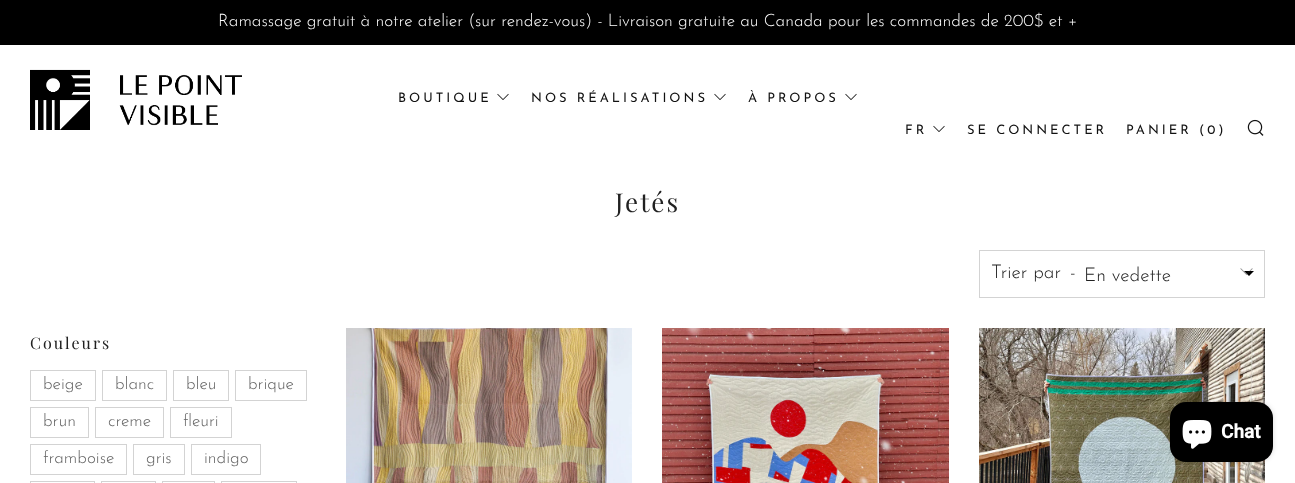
(async () => {
    const canvas = document.querySelector("canvas");
    canvas.width = 1295;
    canvas.height = 483;
    const context = canvas.getContext("2d");
    context.miterLimit = 4;
    context.fontKerning = "normal";
    function write(s, x, y, font, color) {
        context.font = font;
        context.fillStyle = color;
        context.fillText(s, x, y);
    }
    function block(x, y, w, h, color) {
        context.fillStyle = color;
        context.fillRect(x, y, w, h);
    }
    function card(x, y, w, h, r, color) {
        context.fillStyle = color;
        context.beginPath();
        context.roundRect(x, y, w, h, r);
        context.fill();
    }
    async function photo(src, x, y, w, h) {
        const img = new Image();
        img.src = src;
        await img.decode();
        context.drawImage(img, x, y, w, h);
    }

    block(0, 0, 1295, 483, "rgb(255, 255, 255)");
    block(0, 0, 1295, 45, "rgb(0, 0, 0)");
    write("Ramassage gratuit à notre atelier (sur rendez-vous) - Livraison gratuite au Canada pour les commandes de 200$ et +", 218, 26, "300 17.1px Josefin Sans", "rgb(255, 255, 255)");
    await photo("media/1.png", 30, 69, 212, 61);
    context.letterSpacing = "3px";
    write("BOUTIQUE", 398, 102, "13px Josefin Sans", "rgb(17, 17, 17)");
    await photo("media/2.png", 497, 93, 12, 7);
    write("NOS RÉALISATIONS", 531, 102, "13px Josefin Sans", "rgb(17, 17, 17)");
    await photo("media/2.png", 714, 93, 12, 7);
    write("À PROPOS", 748, 102, "13px Josefin Sans", "rgb(17, 17, 17)");
    await photo("media/2.png", 845, 93, 12, 7);
    write("FR", 905, 134, "13px Josefin Sans", "rgb(17, 17, 17)");
    await photo("media/2.png", 933, 125, 12, 7);
    write("SE CONNECTER", 967, 134, "13px Josefin Sans", "rgb(17, 17, 17)");
    write("PANIER (0)", 1126, 134, "13px Josefin Sans", "rgb(17, 17, 17)");
    await photo("media/3.png", 1247, 119, 17, 17);
    context.letterSpacing = "2px";
    write("Jetés", 615, 212, "26px Playfair Display", "rgb(33, 33, 33)");
    context.fillStyle = "rgb(0, 0, 0)";
    context.beginPath();
    context.moveTo(1244, 271);
    context.lineTo(1249, 276);
    context.lineTo(1254, 271);
    context.closePath();
    context.fill();
    context.strokeStyle = "rgb(211, 211, 211)";
    context.strokeRect(979.5, 250.5, 285, 47);
    context.letterSpacing = "0px";
    write("Trier par", 991, 278, "300 19px Josefin Sans", "rgb(33, 33, 33)");
    write("-", 1070, 278, "300 19px Josefin Sans", "rgb(33, 33, 33)");
    write("En vedette", 1084, 281, "300 19px Josefin Sans", "rgb(33, 33, 33)");
    await photo("media/4.png", 1240, 268, 13, 7);
    context.letterSpacing = "2px";
    write("Couleurs", 30, 349, "16px Playfair Display", "rgb(33, 33, 33)");
    context.strokeRect(30.5, 370.5, 65, 30);
    context.letterSpacing = "0px";
    write("beige", 43, 389, "300 17.1px Josefin Sans", "rgb(100, 100, 100)");
    context.strokeRect(102.5, 370.5, 64, 30);
    write("blanc", 115, 389, "300 17.1px Josefin Sans", "rgb(100, 100, 100)");
    context.strokeRect(173.5, 370.5, 55, 30);
    write("bleu", 186, 389, "300 17.1px Josefin Sans", "rgb(100, 100, 100)");
    context.strokeRect(235.5, 370.5, 71, 30);
    write("brique", 248, 389, "300 17.1px Josefin Sans", "rgb(100, 100, 100)");
    context.strokeRect(30.5, 407.5, 58, 30);
    write("brun", 43, 426, "300 17.1px Josefin Sans", "rgb(100, 100, 100)");
    context.strokeRect(95.5, 407.5, 68, 30);
    write("creme", 108, 426, "300 17.1px Josefin Sans", "rgb(100, 100, 100)");
    context.strokeRect(170.5, 407.5, 61, 30);
    write("fleuri", 183, 426, "300 17.1px Josefin Sans", "rgb(100, 100, 100)");
    context.strokeRect(30.5, 444.5, 96, 30);
    write("framboise", 43, 463, "300 17.1px Josefin Sans", "rgb(100, 100, 100)");
    context.strokeRect(133.5, 444.5, 51, 30);
    write("gris", 146, 463, "300 17.1px Josefin Sans", "rgb(100, 100, 100)");
    context.strokeRect(191.5, 444.5, 69, 30);
    write("indigo", 204, 463, "300 17.1px Josefin Sans", "rgb(100, 100, 100)");
    context.strokeRect(30.5, 481.5, 64, 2);
    context.strokeRect(101.5, 481.5, 54, 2);
    context.strokeRect(162.5, 481.5, 52, 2);
    context.strokeRect(221.5, 481.5, 75, 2);
    await photo("media/5.png", 346, 328, 286, 155);
    await photo("media/6.png", 662, 328, 287, 155);
    await photo("media/7.png", 979, 328, 286, 155);
    context.fillStyle = "rgba(0, 0, 0, 0.15)";
    context.filter = "blur(2.5px)";
    context.beginPath();
    context.roundRect(1170, 402, 103, 60, 16);
    context.fill();
    context.filter = "none";
    card(1170, 402, 103, 60, 16, "rgb(0, 0, 0)");
    await photo("media/8.png", 1182, 420, 30, 29);
    write("Chat", 1221, 438, "bold 19px Roboto", "rgb(255, 255, 255)");
})();
